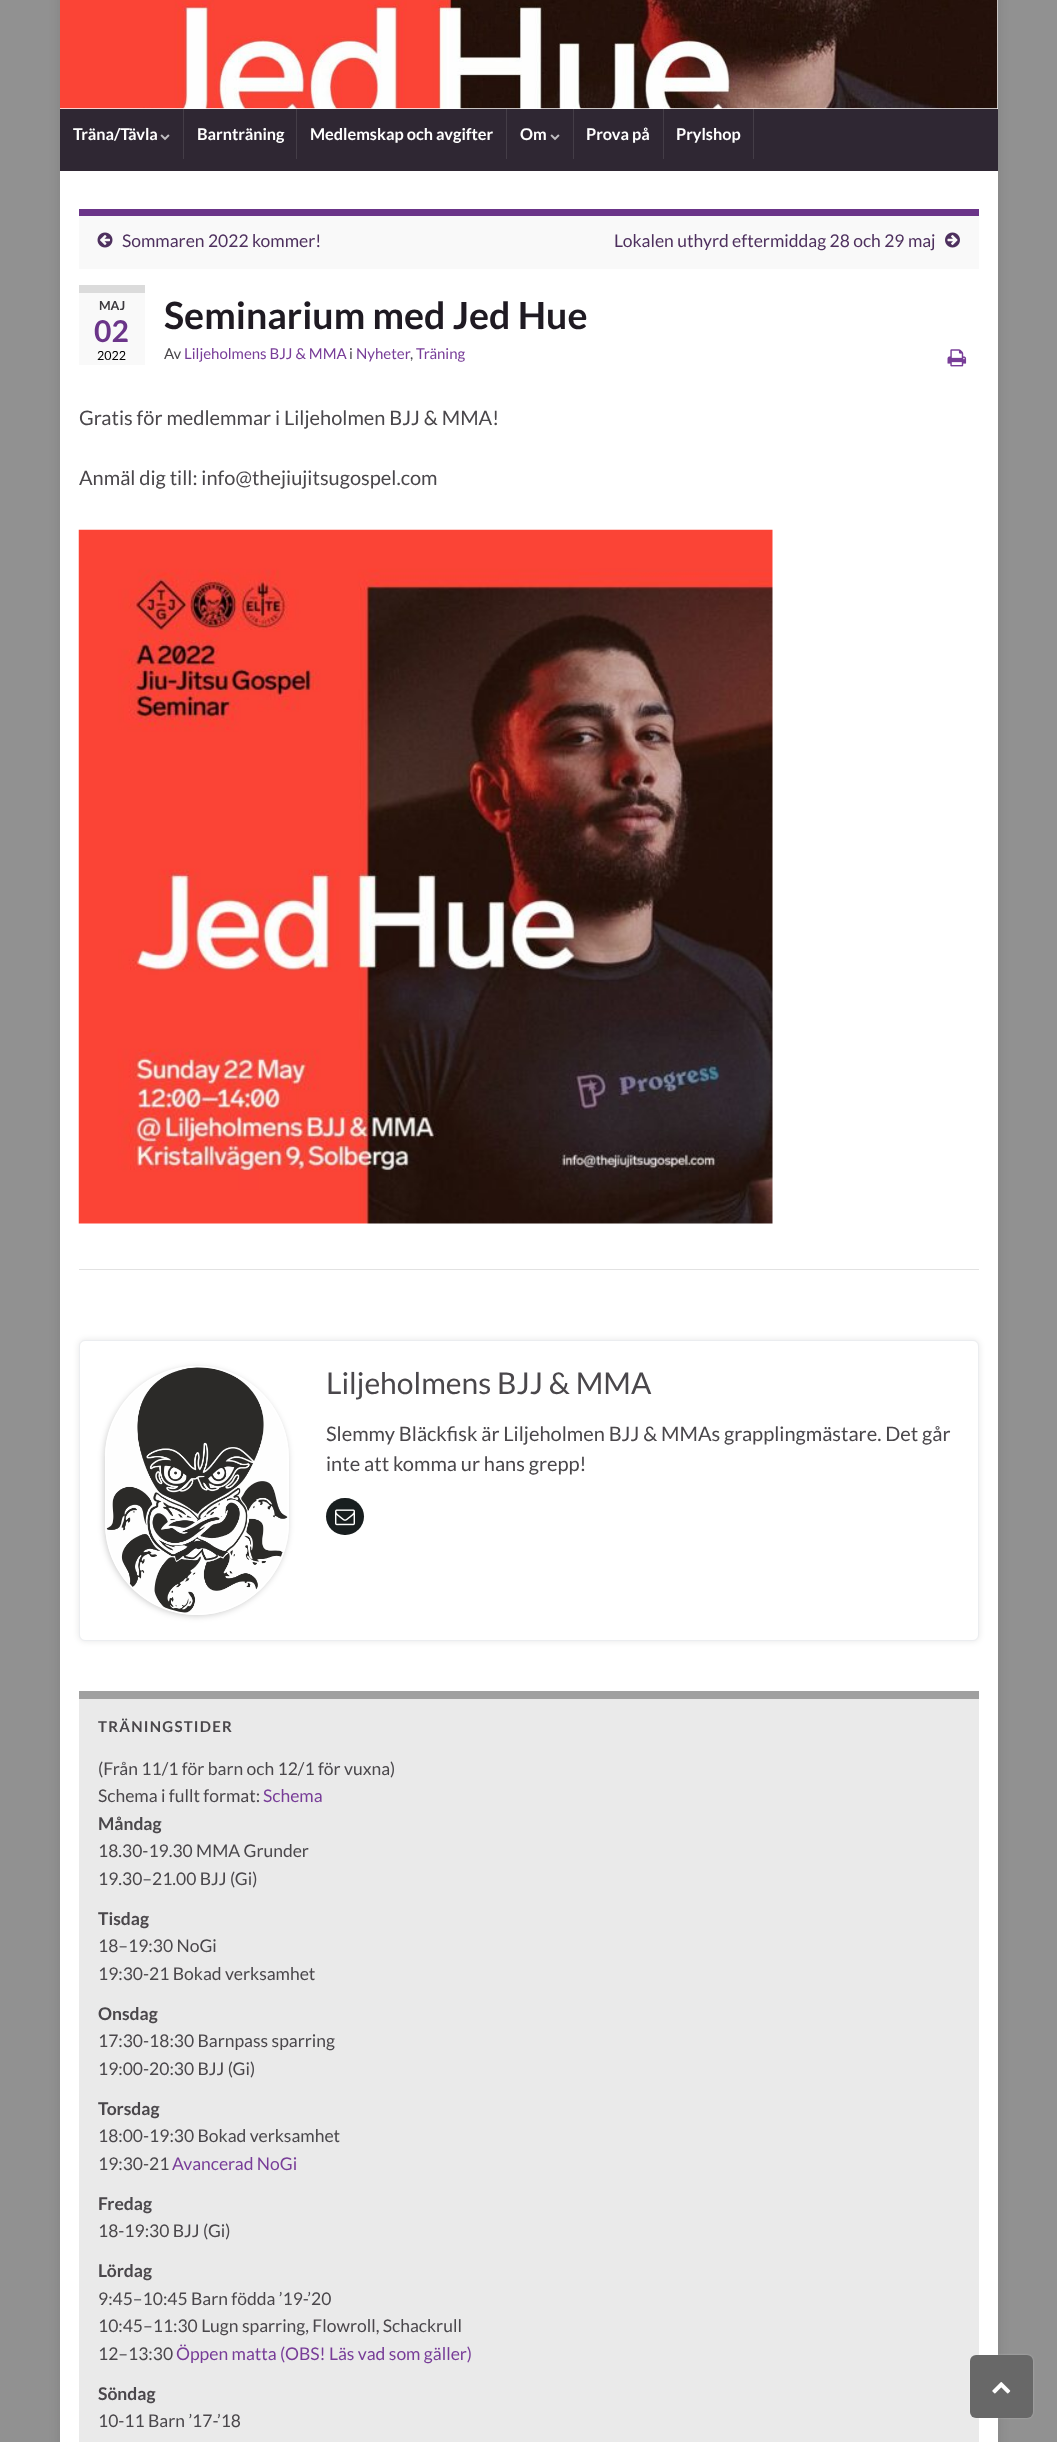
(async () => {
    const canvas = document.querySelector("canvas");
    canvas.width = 1057;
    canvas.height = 2442;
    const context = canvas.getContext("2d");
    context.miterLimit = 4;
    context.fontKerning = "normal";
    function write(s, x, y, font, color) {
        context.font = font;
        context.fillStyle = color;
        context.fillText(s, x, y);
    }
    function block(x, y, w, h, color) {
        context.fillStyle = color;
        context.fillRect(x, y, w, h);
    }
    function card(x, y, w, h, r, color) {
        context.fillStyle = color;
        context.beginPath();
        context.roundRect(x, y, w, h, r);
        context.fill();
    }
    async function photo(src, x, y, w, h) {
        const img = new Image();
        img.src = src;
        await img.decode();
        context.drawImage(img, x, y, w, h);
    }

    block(0, 0, 1057, 2442, "rgb(145, 145, 145)");
    context.fillStyle = "rgba(0, 0, 0, 0.1)";
    context.filter = "blur(6px)";
    context.beginPath();
    context.rect(60, -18, 938, 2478);
    context.fill();
    context.filter = "none";
    block(60, 0, 938, 109, "rgb(255, 255, 255)");
    await photo("media/1.png", 60, 0, 938, 109);
    block(60, 109, 938, 62, "rgb(47, 39, 51)");
    block(183, 109, 1, 50, "rgb(68, 61, 71)");
    write("Träna/Tävla", 73, 140, "bold 16.25px Lato", "rgb(255, 255, 255)");
    await photo("media/2.png", 160, 134, 10, 7);
    block(296, 109, 1, 50, "rgb(68, 61, 71)");
    write("Barnträning", 197, 140, "bold 16.25px Lato", "rgb(255, 255, 255)");
    block(506, 109, 1, 50, "rgb(68, 61, 71)");
    write("Medlemskap och avgifter", 310, 140, "bold 16.25px Lato", "rgb(255, 255, 255)");
    block(573, 109, 1, 50, "rgb(68, 61, 71)");
    write("Om", 520, 140, "bold 16.25px Lato", "rgb(255, 255, 255)");
    await photo("media/2.png", 550, 134, 10, 7);
    block(663, 109, 1, 50, "rgb(68, 61, 71)");
    write("Prova på", 586, 140, "bold 16.25px Lato", "rgb(255, 255, 255)");
    block(753, 109, 1, 50, "rgb(68, 61, 71)");
    write("Prylshop", 676, 140, "bold 16.25px Lato", "rgb(255, 255, 255)");
    block(60, 171, 938, 2271, "rgb(255, 255, 255)");
    block(79, 216, 900, 53, "rgb(249, 249, 249)");
    block(79, 209, 900, 7, "rgb(107, 53, 137)");
    await photo("media/3.png", 97, 232, 16, 16);
    write("Sommaren 2022 kommer!", 122, 247, "17.5px Lato", "rgb(78, 48, 94)");
    write("Lokalen uthyrd eftermiddag 28 och 29 maj", 614, 247, "17.5px Lato", "rgb(78, 48, 94)");
    await photo("media/4.png", 945, 232, 15, 16);
    block(79, 293, 66, 72, "rgb(249, 249, 249)");
    block(79, 285, 66, 8, "rgb(219, 219, 219)");
    write("MAJ", 99, 310, "bold 12.5px Lato", "rgb(59, 56, 61)");
    write("02", 94, 342, "bold 30px Lato", "rgb(107, 53, 137)");
    write("2022", 97, 360, "12.5px Lato", "rgb(0, 0, 0)");
    write("Seminarium med Jed Hue", 164, 329, "bold 37.5px Lato", "rgb(31, 26, 34)");
    write("Av", 164, 359, "15px Lato", "rgb(74, 71, 75)");
    write("Liljeholmens BJJ & MMA", 184, 359, "15px Lato", "rgb(120, 61, 152)");
    write("i", 349, 359, "15px Lato", "rgb(74, 71, 75)");
    write("Nyheter", 356, 359, "15px Lato", "rgb(120, 61, 152)");
    write(",", 410, 359, "15px Lato", "rgb(74, 71, 75)");
    write("Träning", 416, 359, "15px Lato", "rgb(120, 61, 152)");
    await photo("media/5.png", 947, 349, 20, 18);
    write("Gratis för medlemmar i Liljeholmen BJJ & MMA!", 79, 425, "20px Lato", "rgb(74, 71, 75)");
    write("Anmäl dig till: info@thejiujitsugospel.com", 79, 485, "20px Lato", "rgb(74, 71, 75)");
    await photo("media/6.png", 78, 529, 695, 695);
    block(79, 1269, 900, 1, "rgb(226, 226, 226)");
    context.fillStyle = "rgba(0, 0, 0, 0.1)";
    context.filter = "blur(3px)";
    context.beginPath();
    context.roundRect(79, 1340, 900, 301, 6);
    context.fill();
    context.filter = "none";
    context.fillStyle = "rgb(255, 255, 255)";
    context.beginPath();
    context.roundRect(79.5, 1340.5, 899, 300, 5.5);
    context.fill();
    context.strokeStyle = "rgb(235, 237, 240)";
    context.stroke();
    context.save();
    context.beginPath();
    context.moveTo(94, 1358);
    context.lineTo(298, 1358);
    context.lineTo(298, 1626);
    context.lineTo(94, 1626);
    context.closePath();
    context.moveTo(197, 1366);
    context.bezierCurveTo(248, 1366, 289, 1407, 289, 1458);
    context.lineTo(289, 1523);
    context.bezierCurveTo(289, 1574, 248, 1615, 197, 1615);
    context.bezierCurveTo(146, 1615, 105, 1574, 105, 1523);
    context.lineTo(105, 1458);
    context.bezierCurveTo(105, 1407, 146, 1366, 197, 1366);
    context.closePath();
    context.clip("evenodd");
    context.fillStyle = "rgba(0, 0, 0, 0.2)";
    context.filter = "blur(3px)";
    context.beginPath();
    context.roundRect(104, 1368, 184, 248, 92);
    context.fill();
    context.filter = "none";
    context.restore();
    context.beginPath();
    context.roundRect(105.5, 1366.5, 183, 248, 91.5);
    context.strokeStyle = "rgb(255, 255, 255)";
    context.stroke();
    await photo("media/7.png", 106, 1367, 182, 246);
    write("Liljeholmens BJJ & MMA", 326, 1394, "30px Lato", "rgb(74, 71, 75)");
    write("Slemmy Bläckfisk är Liljeholmen BJJ & MMAs grapplingmästare. Det går", 326, 1441, "20px Lato", "rgb(74, 71, 75)");
    write("inte att komma ur hans grepp!", 326, 1471, "20px Lato", "rgb(74, 71, 75)");
    card(326, 1498, 38, 37, 18.5, "rgb(24, 30, 31)");
    await photo("media/8.png", 335, 1509, 20, 17);
    block(79, 1699, 900, 743, "rgb(234, 234, 234)");
    block(79, 1691, 900, 8, "rgb(160, 160, 160)");
    context.letterSpacing = "1.25px";
    write("TRÄNINGSTIDER", 98, 1732, "bold 15px Lato", "rgb(74, 71, 75)");
    context.letterSpacing = "0px";
    write("(Från 11/1 för barn och 12/1 för vuxna)", 98, 1775, "17.5px Lato", "rgb(74, 71, 75)");
    write("Schema i fullt format:", 98, 1802, "17.5px Lato", "rgb(74, 71, 75)");
    write("Schema", 263, 1802, "17.5px Lato", "rgb(120, 61, 152)");
    write("Måndag", 98, 1830, "bold 17.5px Lato", "rgb(74, 71, 75)");
    write("18.30-19.30 MMA Grunder", 98, 1857, "17.5px Lato", "rgb(74, 71, 75)");
    write("19.30–21.00 BJJ (Gi)", 98, 1885, "17.5px Lato", "rgb(74, 71, 75)");
    write("Tisdag", 98, 1925, "bold 17.5px Lato", "rgb(74, 71, 75)");
    write("18–19:30 NoGi", 98, 1952, "17.5px Lato", "rgb(74, 71, 75)");
    write("19:30-21 Bokad verksamhet", 98, 1980, "17.5px Lato", "rgb(74, 71, 75)");
    write("Onsdag", 98, 2020, "bold 17.5px Lato", "rgb(74, 71, 75)");
    write("17:30-18:30 Barnpass sparring", 98, 2047, "17.5px Lato", "rgb(74, 71, 75)");
    write("19:00-20:30 BJJ (Gi)", 98, 2075, "17.5px Lato", "rgb(74, 71, 75)");
    write("Torsdag", 98, 2115, "bold 17.5px Lato", "rgb(74, 71, 75)");
    write("18:00-19:30 Bokad verksamhet", 98, 2142, "17.5px Lato", "rgb(74, 71, 75)");
    write("19:30-21", 98, 2170, "17.5px Lato", "rgb(74, 71, 75)");
    write("Avancerad NoGi", 172, 2170, "17.5px Lato", "rgb(120, 61, 152)");
    write("Fredag", 98, 2210, "bold 17.5px Lato", "rgb(74, 71, 75)");
    write("18-19:30 BJJ (Gi)", 98, 2237, "17.5px Lato", "rgb(74, 71, 75)");
    write("Lördag", 98, 2277, "bold 17.5px Lato", "rgb(74, 71, 75)");
    write("9:45–10:45 Barn födda ’19-’20", 98, 2305, "17.5px Lato", "rgb(74, 71, 75)");
    write("10:45–11:30 Lugn sparring, Flowroll, Schackrull", 98, 2332, "17.5px Lato", "rgb(74, 71, 75)");
    write("12–13:30", 98, 2360, "17.5px Lato", "rgb(74, 71, 75)");
    write("Öppen matta (OBS! Läs vad som gäller)", 176, 2360, "17.5px Lato", "rgb(120, 61, 152)");
    write("Söndag", 98, 2400, "bold 17.5px Lato", "rgb(74, 71, 75)");
    write("10-11 Barn ’17-’18", 98, 2427, "17.5px Lato", "rgb(74, 71, 75)");
    context.fillStyle = "rgba(255, 255, 255, 0.3)";
    context.filter = "blur(1px)";
    context.beginPath();
    context.roundRect(970, 2355, 63, 63, 6);
    context.fill();
    context.filter = "none";
    card(970, 2355, 63, 63, 6, "rgb(104, 104, 104)");
    await photo("media/9.png", 992, 2382, 19, 12);
})();
